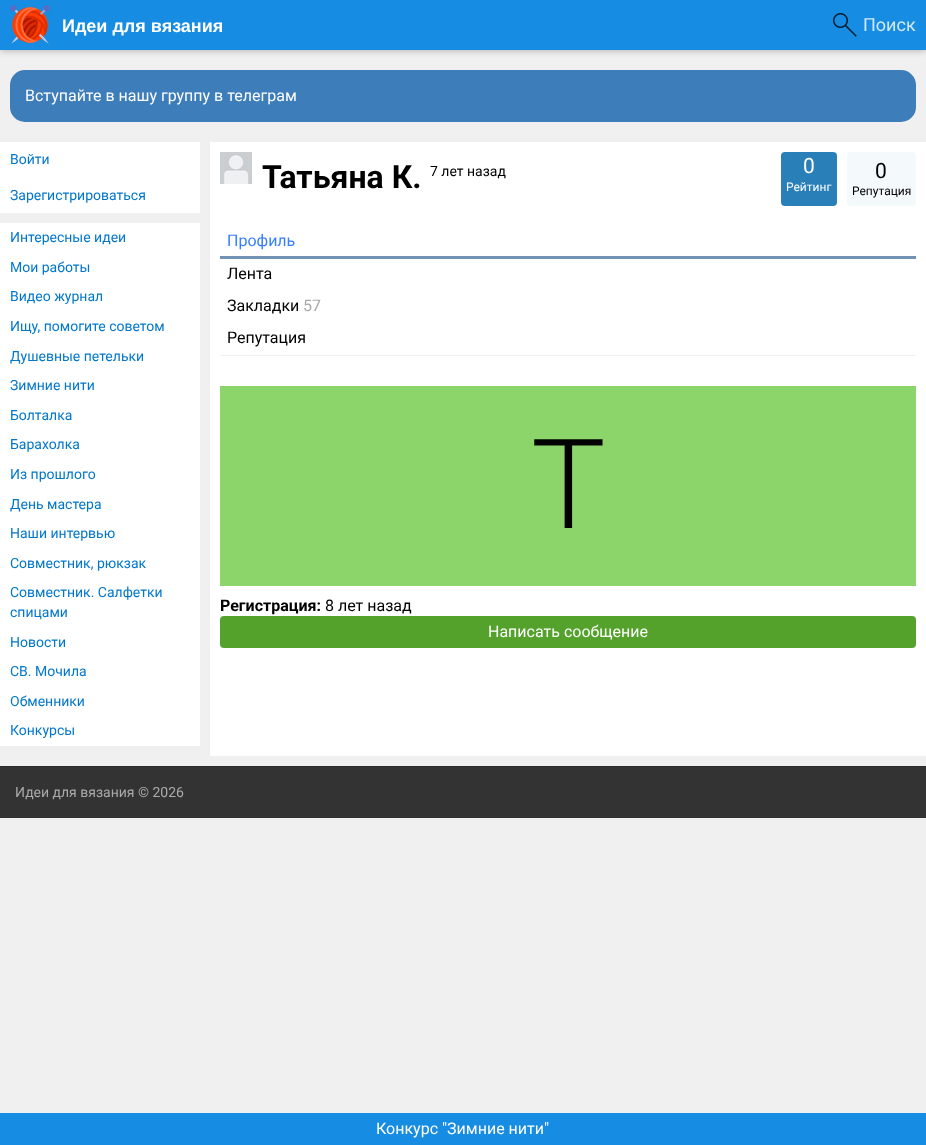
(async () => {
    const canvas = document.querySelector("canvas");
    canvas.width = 926;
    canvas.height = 1145;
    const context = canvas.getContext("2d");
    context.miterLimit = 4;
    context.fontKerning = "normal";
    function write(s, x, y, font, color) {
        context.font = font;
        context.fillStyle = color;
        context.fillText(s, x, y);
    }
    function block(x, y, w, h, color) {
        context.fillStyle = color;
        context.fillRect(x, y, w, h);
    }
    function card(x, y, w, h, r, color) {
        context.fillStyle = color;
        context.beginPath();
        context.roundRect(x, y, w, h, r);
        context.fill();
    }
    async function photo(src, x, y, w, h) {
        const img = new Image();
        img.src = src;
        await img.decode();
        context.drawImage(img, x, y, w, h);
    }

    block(0, 0, 926, 1145, "rgb(240, 240, 240)");
    context.fillStyle = "rgba(32, 33, 36, 0.28)";
    context.filter = "blur(3px)";
    context.beginPath();
    context.rect(0, 1, 926, 50);
    context.fill();
    context.filter = "none";
    block(0, 0, 926, 50, "rgb(22, 141, 226)");
    await photo("media/1.png", 10, 5, 40, 39);
    write("Идеи для вязания", 62, 32, "bold 18px Liberation Sans", "rgb(255, 255, 255)");
    await photo("media/2.png", 833, 13, 24, 24);
    write("Поиск", 863, 31, "18px Roboto", "rgb(208, 232, 249)");
    card(10, 70, 906, 52, 15, "rgb(61, 125, 186)");
    write("Вступайте в нашу группу в телеграм", 25, 101, "16px Roboto", "rgb(255, 255, 255)");
    block(0, 142, 200, 71, "rgb(255, 255, 255)");
    write("Войти", 10, 164, "14px Roboto", "rgb(0, 119, 204)");
    write("Зарегистрироваться", 10, 200, "14px Roboto", "rgb(0, 119, 204)");
    block(0, 223, 200, 523, "rgb(255, 255, 255)");
    write("Интересные идеи", 10, 242, "14px Roboto", "rgb(0, 119, 204)");
    write("Мои работы", 10, 272, "14px Roboto", "rgb(0, 119, 204)");
    write("Видео журнал", 10, 301, "14px Roboto", "rgb(0, 119, 204)");
    write("Ищу, помогите советом", 10, 331, "14px Roboto", "rgb(0, 119, 204)");
    write("Душевные петельки", 10, 361, "14px Roboto", "rgb(0, 119, 204)");
    write("Зимние нити", 10, 390, "14px Roboto", "rgb(0, 119, 204)");
    write("Болталка", 10, 420, "14px Roboto", "rgb(0, 119, 204)");
    write("Барахолка", 10, 449, "14px Roboto", "rgb(0, 119, 204)");
    write("Из прошлого", 10, 479, "14px Roboto", "rgb(0, 119, 204)");
    write("День мастера", 10, 509, "14px Roboto", "rgb(0, 119, 204)");
    write("Наши интервью", 10, 538, "14px Roboto", "rgb(0, 119, 204)");
    write("Совместник, рюкзак", 10, 568, "14px Roboto", "rgb(0, 119, 204)");
    write("Совместник. Салфетки", 10, 597, "14px Roboto", "rgb(0, 119, 204)");
    write("спицами", 10, 617, "14px Roboto", "rgb(0, 119, 204)");
    write("Новости", 10, 647, "14px Roboto", "rgb(0, 119, 204)");
    write("СВ. Мочила", 10, 676, "14px Roboto", "rgb(0, 119, 204)");
    write("Обменники", 10, 706, "14px Roboto", "rgb(0, 119, 204)");
    write("Конкурсы", 10, 735, "14px Roboto", "rgb(0, 119, 204)");
    block(210, 142, 716, 614, "rgb(255, 255, 255)");
    await photo("media/3.png", 220, 152, 32, 32);
    write("Татьяна К.", 262, 188, "bold 32px Roboto", "rgb(0, 0, 0)");
    write("7 лет назад", 430, 176, "14px Roboto", "rgb(0, 0, 0)");
    card(781, 152, 56, 54, 4, "rgb(41, 128, 185)");
    write("0", 803, 173, "21px Roboto", "rgb(255, 255, 255)");
    write("Рейтинг", 786, 191, "12px Roboto", "rgb(255, 255, 255)");
    card(847, 152, 69, 54, 4, "rgb(244, 250, 252)");
    write("0", 875, 178, "21px Roboto", "rgb(0, 0, 0)");
    write("Репутация", 852, 195, "12px Roboto", "rgb(0, 0, 0)");
    block(220, 355, 696, 1, "rgb(238, 238, 238)");
    block(220, 256, 696, 3, "rgb(114, 147, 182)");
    write("Профиль", 227, 246, "16px Roboto", "rgb(55, 125, 255)");
    write("Лента", 227, 279, "16px Roboto", "rgb(0, 0, 0)");
    write("Закладки", 227, 311, "16px Roboto", "rgb(0, 0, 0)");
    write("57", 303, 311, "16px Roboto", "rgb(170, 170, 170)");
    write("Репутация", 227, 343, "16px Roboto", "rgb(0, 0, 0)");
    block(220, 386, 696, 200, "rgb(139, 213, 107)");
    write("Т", 531, 528, "300 125px Roboto", "rgb(0, 0, 0)");
    write("Регистрация:", 220, 611, "bold 16px Roboto", "rgb(0, 0, 0)");
    write("8 лет назад", 325, 611, "16px Roboto", "rgb(0, 0, 0)");
    card(220, 616, 696, 32, 4, "rgb(84, 162, 44)");
    write("Написать сообщение", 488, 637, "16px Roboto", "rgb(255, 255, 255)");
    block(0, 1113, 926, 32, "rgb(22, 141, 226)");
    write("Конкурс \"Зимние нити\"", 376, 1134, "16px Roboto", "rgb(255, 255, 255)");
    block(0, 767, 926, 51, "rgb(51, 51, 51)");
    block(0, 766, 926, 1, "rgb(45, 45, 45)");
    write("Идеи для вязания © 2026", 15, 797, "14px Roboto", "rgb(170, 170, 170)");
})();
